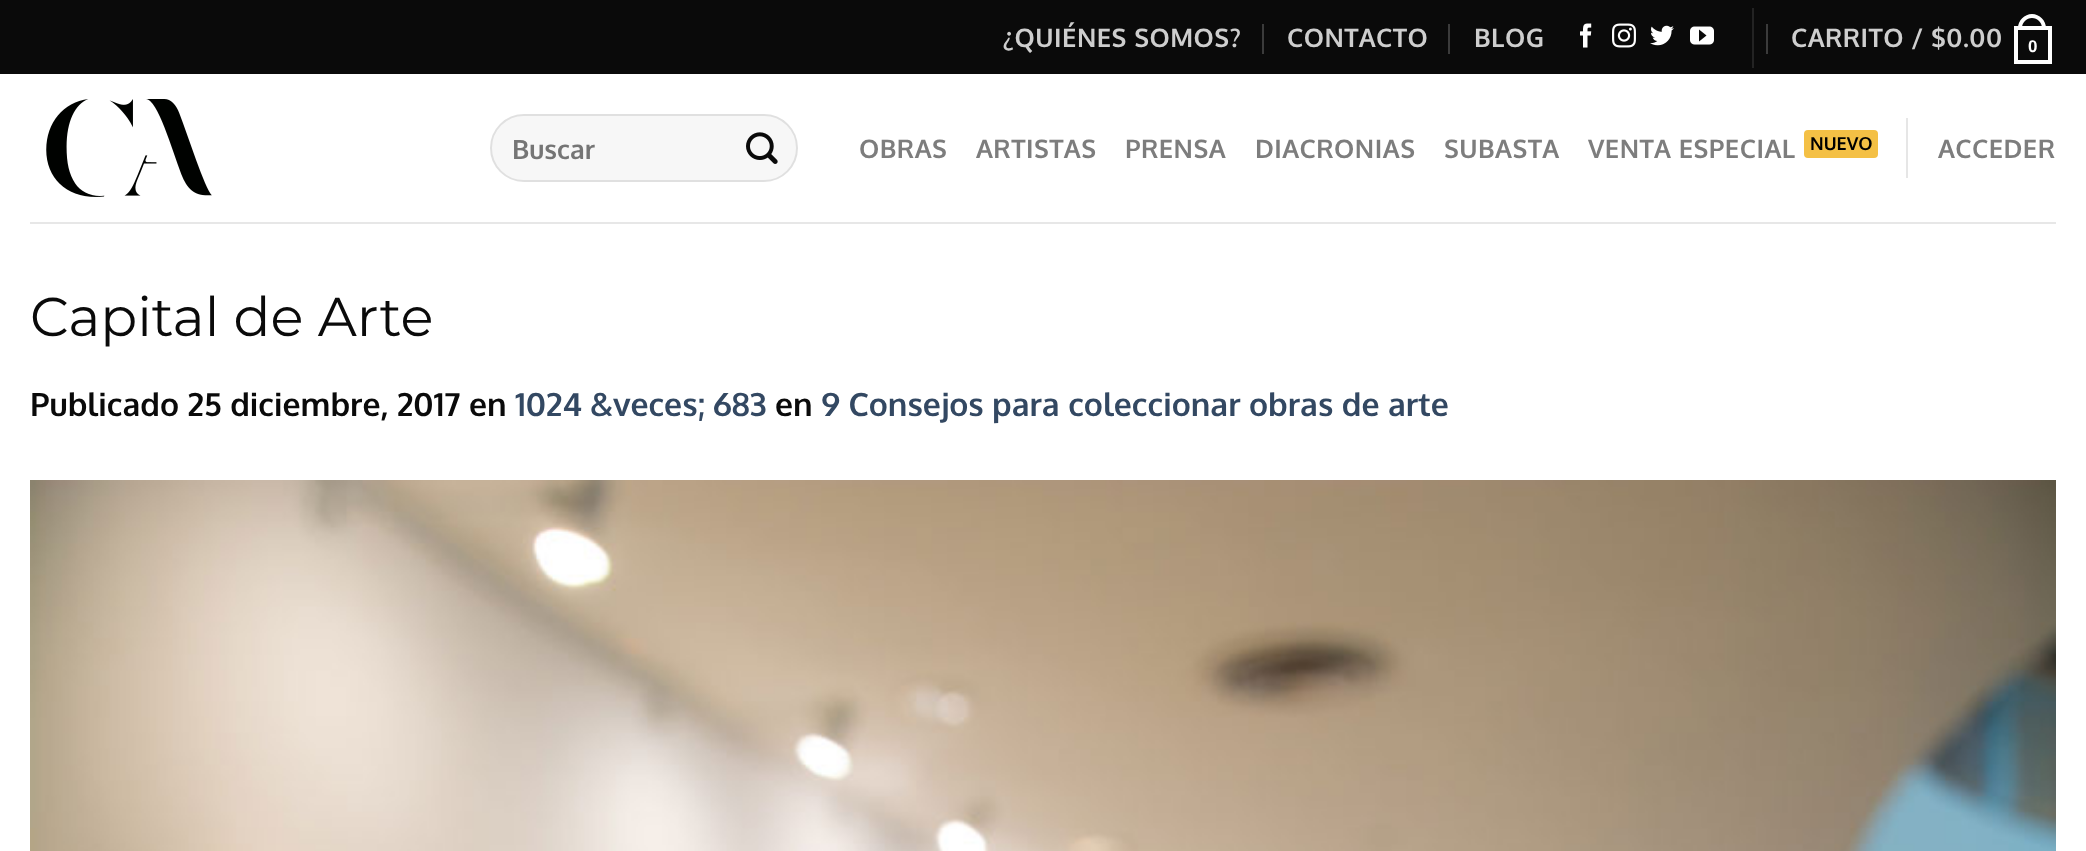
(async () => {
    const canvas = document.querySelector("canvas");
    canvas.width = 2086;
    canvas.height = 851;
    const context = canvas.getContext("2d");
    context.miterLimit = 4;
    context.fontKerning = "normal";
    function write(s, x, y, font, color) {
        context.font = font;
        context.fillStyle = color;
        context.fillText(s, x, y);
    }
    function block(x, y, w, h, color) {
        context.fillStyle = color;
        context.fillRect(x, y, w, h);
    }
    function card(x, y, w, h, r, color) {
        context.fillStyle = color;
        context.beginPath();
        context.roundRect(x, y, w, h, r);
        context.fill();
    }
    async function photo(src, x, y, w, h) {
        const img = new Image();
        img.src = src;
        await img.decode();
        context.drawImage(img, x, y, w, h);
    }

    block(0, 0, 2086, 851, "rgb(255, 255, 255)");
    block(0, 0, 2086, 74, "rgb(10, 10, 10)");
    context.letterSpacing = "0.5px";
    write("¿QUIÉNES SOMOS?", 1003, 47, "bold 25.5px Oxygen", "rgb(206, 206, 206)");
    block(1262, 24, 2, 30, "rgb(59, 59, 59)");
    write("CONTACTO", 1287, 47, "bold 25.5px Oxygen", "rgb(206, 206, 206)");
    block(1448, 24, 2, 30, "rgb(59, 59, 59)");
    write("BLOG", 1474, 47, "bold 25.5px Oxygen", "rgb(206, 206, 206)");
    await photo("media/1.png", 1580, 23, 12, 25);
    await photo("media/2.png", 1612, 23, 24, 25);
    await photo("media/3.png", 1650, 25, 24, 21);
    await photo("media/4.png", 1690, 26, 24, 19);
    block(1752, 8, 2, 60, "rgb(35, 35, 35)");
    block(1766, 24, 2, 30, "rgb(59, 59, 59)");
    write("CARRITO / $0.00", 1791, 47, "bold 25.5px Oxygen", "rgb(206, 206, 206)");
    context.strokeStyle = "rgb(255, 255, 255)";
    context.lineWidth = 4;
    context.strokeRect(2016, 28, 34, 34);
    context.fillStyle = "rgb(255, 255, 255)";
    context.beginPath();
    context.moveTo(2032, 14);
    context.bezierCurveTo(2039.5, 14, 2046, 20.5, 2046, 28);
    context.lineTo(2046, 30);
    context.lineTo(2018, 30);
    context.lineTo(2018, 28);
    context.bezierCurveTo(2018, 20.5, 2024.5, 14, 2032, 14);
    context.closePath();
    context.moveTo(2032, 18);
    context.bezierCurveTo(2037.5, 18, 2042, 22.5, 2042, 28);
    context.lineTo(2042, 30);
    context.lineTo(2022, 30);
    context.lineTo(2022, 28);
    context.bezierCurveTo(2022, 22.5, 2026.5, 18, 2032, 18);
    context.closePath();
    context.fill("evenodd");
    write("0", 2028, 52, "bold 17px Liberation Sans", "rgb(255, 255, 255)");
    await photo("media/5.png", 46, 99, 166, 98);
    card(490, 114, 308, 68, 34, "rgb(247, 247, 247)");
    context.beginPath();
    context.roundRect(491, 115, 306, 66, 33);
    context.strokeStyle = "rgba(0, 0, 0, 0.09)";
    context.lineWidth = 2;
    context.stroke();
    context.letterSpacing = "0px";
    write("Buscar", 512, 159, "bold 26.5px Oxygen", "rgb(117, 117, 117)");
    await photo("media/6.png", 746, 132, 32, 32);
    context.letterSpacing = "0.5px";
    write("OBRAS", 859, 158, "bold 25.5px Oxygen", "rgb(125, 125, 125)");
    write("ARTISTAS", 976, 158, "bold 25.5px Oxygen", "rgb(125, 125, 125)");
    write("PRENSA", 1125, 158, "bold 25.5px Oxygen", "rgb(125, 125, 125)");
    write("DIACRONIAS", 1255, 158, "bold 25.5px Oxygen", "rgb(125, 125, 125)");
    write("SUBASTA", 1444, 158, "bold 25.5px Oxygen", "rgb(125, 125, 125)");
    write("VENTA ESPECIAL", 1588, 158, "bold 25.5px Oxygen", "rgb(125, 125, 125)");
    card(1804, 130, 74, 28, 4, "rgb(244, 192, 69)");
    context.letterSpacing = "0px";
    write("NUEVO", 1810, 150, "bold 18px Oxygen", "rgb(0, 0, 0)");
    block(1906, 118, 2, 60, "rgb(230, 230, 230)");
    context.letterSpacing = "0.5px";
    write("ACCEDER", 1938, 158, "bold 25.5px Oxygen", "rgb(125, 125, 125)");
    block(30, 222, 2026, 2, "rgb(231, 231, 231)");
    context.letterSpacing = "0px";
    write("Capital de Arte", 30, 336, "54.5px Montserrat", "rgb(10, 10, 10)");
    write("Publicado 25 diciembre, 2017 en", 30, 416, "bold 32px Oxygen", "rgb(10, 10, 10)");
    write("1024 &veces; 683", 515, 416, "bold 32px Oxygen", "rgb(51, 72, 98)");
    write("en", 775, 416, "bold 32px Oxygen", "rgb(10, 10, 10)");
    write("9 Consejos para coleccionar obras de arte", 821, 416, "bold 32px Oxygen", "rgb(51, 72, 98)");
    await photo("media/7.png", 30, 480, 2026, 371);
})();
